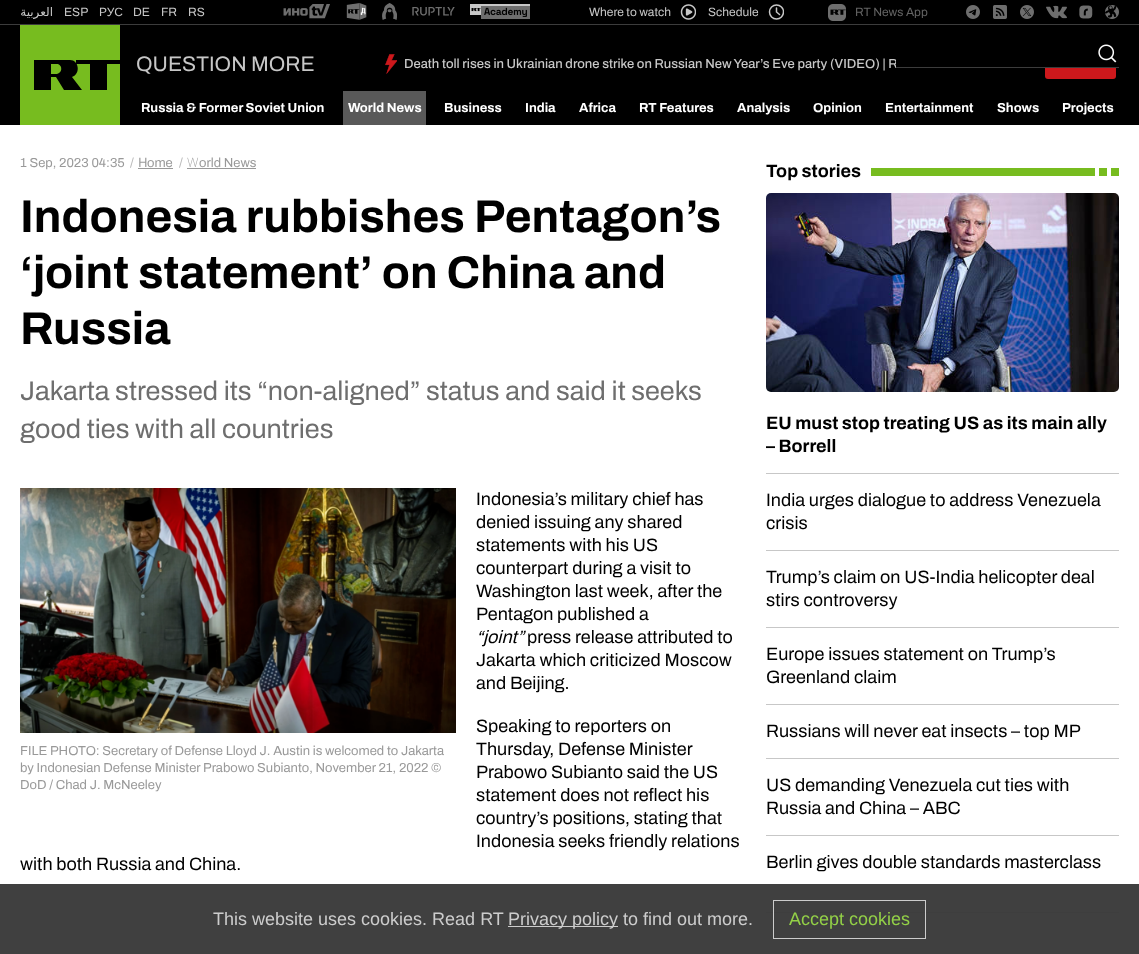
(async () => {
    const canvas = document.querySelector("canvas");
    canvas.width = 1139;
    canvas.height = 954;
    const context = canvas.getContext("2d");
    context.miterLimit = 4;
    context.fontKerning = "normal";
    function write(s, x, y, font, color) {
        context.font = font;
        context.fillStyle = color;
        context.fillText(s, x, y);
    }
    function block(x, y, w, h, color) {
        context.fillStyle = color;
        context.fillRect(x, y, w, h);
    }
    function card(x, y, w, h, r, color) {
        context.fillStyle = color;
        context.beginPath();
        context.roundRect(x, y, w, h, r);
        context.fill();
    }
    async function photo(src, x, y, w, h) {
        const img = new Image();
        img.src = src;
        await img.decode();
        context.drawImage(img, x, y, w, h);
    }

    block(0, 0, 1139, 954, "rgb(255, 255, 255)");
    block(0, 0, 1139, 24, "rgb(0, 0, 0)");
    block(0, 24, 1139, 1, "rgb(60, 60, 60)");
    context.direction = "rtl";
    write("العربية", 53, 16, "12px DejaVu Sans", "rgb(199, 199, 199)");
    context.direction = "ltr";
    write("ESP", 64, 16, "12px Archivo", "rgb(199, 199, 199)");
    write("РУС", 99, 16, "12px Liberation Sans", "rgb(199, 199, 199)");
    write("DE", 133, 16, "12px Archivo", "rgb(199, 199, 199)");
    write("FR", 161, 16, "12px Archivo", "rgb(199, 199, 199)");
    write("RS", 188, 16, "12px Archivo", "rgb(199, 199, 199)");
    await photo("media/1.png", 283, 4, 47, 15);
    await photo("media/2.png", 346, 3, 21, 17);
    await photo("media/3.png", 382, 3, 15, 17);
    await photo("media/4.png", 412, 7, 43, 9);
    await photo("media/5.png", 470, 4, 60, 15);
    write("Where to watch", 589, 16, "12px Archivo", "rgb(199, 199, 199)");
    await photo("media/6.png", 680, 4, 16, 16);
    write("Schedule", 708, 16, "12px Archivo", "rgb(199, 199, 199)");
    context.save();
    context.beginPath();
    context.rect(768, 4, 16, 16);
    context.clip();
    context.beginPath();
    context.arc(776.5, 12, 7, 0, Math.PI * 2);
    context.strokeStyle = "rgb(199, 199, 199)";
    context.lineWidth = 1.5;
    context.stroke();
    context.restore();
    context.beginPath();
    context.moveTo(776.5, 8);
    context.lineTo(776.5, 12);
    context.lineTo(779.5, 14.5);
    context.strokeStyle = "rgb(199, 199, 199)";
    context.lineWidth = 1.5;
    context.lineCap = "round";
    context.stroke();
    await photo("media/7.png", 828, 4, 18, 17);
    write("RT News App", 855, 16, "12px Archivo", "rgb(99, 99, 99)");
    await photo("media/8.png", 966, 5, 14, 14);
    await photo("media/9.png", 993, 5, 14, 14);
    await photo("media/10.png", 1020, 5, 14, 14);
    await photo("media/11.png", 1046, 5, 21, 14);
    await photo("media/12.png", 1079, 5, 14, 14);
    await photo("media/13.png", 1105, 5, 14, 14);
    block(0, 25, 1139, 100, "rgb(0, 0, 0)");
    block(20, 25, 100, 100, "rgb(119, 188, 31)");
    context.fillStyle = "rgb(0, 0, 0)";
    context.beginPath();
    context.moveTo(70, 60);
    context.bezierCurveTo(79, 60, 81, 74, 72, 77);
    context.lineTo(82, 90);
    context.lineTo(64, 90);
    context.lineTo(56, 77);
    context.lineTo(51, 77);
    context.lineTo(51, 90);
    context.lineTo(34, 90);
    context.lineTo(34, 60);
    context.closePath();
    context.moveTo(57, 74);
    context.bezierCurveTo(62, 73, 63, 66, 58, 64);
    context.lineTo(51, 64);
    context.lineTo(51, 74);
    context.closePath();
    context.fill();
    context.beginPath();
    context.moveTo(76, 60);
    context.lineTo(76, 64);
    context.lineTo(90, 64);
    context.lineTo(90, 90);
    context.lineTo(107, 90);
    context.lineTo(107, 64);
    context.lineTo(120, 64);
    context.lineTo(120, 60);
    context.closePath();
    context.fill();
    write("Death toll rises in Ukrainian drone strike on Russian New Year’s Eve party (VIDEO) | R", 404, 68, "500 13px Archivo", "rgb(199, 199, 199)");
    card(1045, 50, 71, 29, 3, "rgb(205, 24, 28)");
    block(896, 50, 220, 17, "rgb(0, 0, 0)");
    await photo("media/14.png", 1098, 44, 19, 19);
    block(896, 67, 223, 1, "rgb(60, 60, 60)");
    write("QUESTION MORE", 136, 71, "21px Archivo", "rgb(199, 199, 199)");
    await photo("media/15.png", 385, 54, 12, 20);
    write("Russia & Former Soviet Union", 141, 112, "bold 13px Archivo", "rgb(255, 255, 255)");
    block(343, 91, 83, 34, "rgb(89, 89, 89)");
    write("World News", 348, 112, "bold 13px Archivo", "rgb(255, 255, 255)");
    write("Business", 444, 112, "bold 13px Archivo", "rgb(255, 255, 255)");
    write("India", 525, 112, "bold 13px Archivo", "rgb(255, 255, 255)");
    write("Africa", 579, 112, "bold 13px Archivo", "rgb(255, 255, 255)");
    write("RT Features", 639, 112, "bold 13px Archivo", "rgb(255, 255, 255)");
    write("Analysis", 737, 112, "bold 13px Archivo", "rgb(255, 255, 255)");
    write("Opinion", 813, 112, "bold 13px Archivo", "rgb(255, 255, 255)");
    write("Entertainment", 885, 112, "bold 13px Archivo", "rgb(255, 255, 255)");
    write("Shows", 997, 112, "bold 13px Archivo", "rgb(255, 255, 255)");
    write("Projects", 1062, 112, "bold 13px Archivo", "rgb(255, 255, 255)");
    write("1 Sep, 2023 04:35", 20, 167, "13px Archivo", "rgb(153, 153, 153)");
    write("/", 130, 167, "13px Archivo", "rgb(184, 184, 184)");
    write("H", 138, 167, "13px Noto Sans", "rgb(153, 153, 153)");
    block(138, 168, 35, 1, "rgb(153, 153, 153)");
    write("ome", 147, 167, "13px Archivo", "rgb(153, 153, 153)");
    write("/", 179, 167, "13px Archivo", "rgb(184, 184, 184)");
    write("W", 187, 167, "200 13px Noto Sans", "rgb(153, 153, 153)");
    block(187, 168, 69, 1, "rgb(153, 153, 153)");
    write("orld News", 199, 167, "13px Archivo", "rgb(153, 153, 153)");
    write("Indonesia rubbishes Pentagon’s", 20, 232, "bold 46px Archivo", "rgb(0, 0, 0)");
    write("‘joint statement’ on China and", 20, 288, "bold 46px Archivo", "rgb(0, 0, 0)");
    write("Russia", 20, 344, "bold 46px Archivo", "rgb(0, 0, 0)");
    write("Jakarta stressed its “non-aligned” status and said it seeks", 20, 400, "27px Archivo", "rgb(110, 110, 110)");
    write("good ties with all countries", 20, 438, "27px Archivo", "rgb(110, 110, 110)");
    write("Indonesia’s military chief has", 476, 505, "18px Archivo", "rgb(0, 0, 0)");
    write("denied issuing any shared", 476, 528, "18px Archivo", "rgb(0, 0, 0)");
    write("statements with his US", 476, 551, "18px Archivo", "rgb(0, 0, 0)");
    write("counterpart during a visit to", 476, 574, "18px Archivo", "rgb(0, 0, 0)");
    write("Washington last week, after the", 476, 597, "18px Archivo", "rgb(0, 0, 0)");
    write("Pentagon published a", 476, 620, "18px Archivo", "rgb(0, 0, 0)");
    write("“joint”", 476, 643, "italic 18px Archivo", "rgb(0, 0, 0)");
    write("press release attributed to", 527, 643, "18px Archivo", "rgb(0, 0, 0)");
    write("Jakarta which criticized Moscow", 476, 666, "18px Archivo", "rgb(0, 0, 0)");
    write("and Beijing.", 476, 689, "18px Archivo", "rgb(0, 0, 0)");
    write("Speaking to reporters on", 476, 732, "18px Archivo", "rgb(0, 0, 0)");
    write("Thursday, Defense Minister", 476, 755, "18px Archivo", "rgb(0, 0, 0)");
    write("Prabowo Subianto said the US", 476, 778, "18px Archivo", "rgb(0, 0, 0)");
    write("statement does not reflect his", 476, 801, "18px Archivo", "rgb(0, 0, 0)");
    write("country’s positions, stating that", 476, 824, "18px Archivo", "rgb(0, 0, 0)");
    write("Indonesia seeks friendly relations", 476, 847, "18px Archivo", "rgb(0, 0, 0)");
    write("with both Russia and China.", 20, 870, "18px Archivo", "rgb(0, 0, 0)");
    await photo("media/16.png", 20, 488, 436, 245);
    write("FILE PHOTO: Secretary of Defense Lloyd J. Austin is welcomed to Jakarta", 20, 755, "13px Archivo", "rgb(153, 153, 153)");
    write("by Indonesian Defense Minister Prabowo Subianto, November 21, 2022 ©", 20, 772, "13px Archivo", "rgb(153, 153, 153)");
    write("DoD / Chad J. McNeeley", 20, 789, "13px Archivo", "rgb(153, 153, 153)");
    write("Top stories", 766, 177, "bold 18px Archivo", "rgb(0, 0, 0)");
    block(871, 168, 248, 8, "rgb(119, 188, 31)");
    block(1107, 168, 4, 8, "rgb(255, 255, 255)");
    block(1095, 168, 4, 8, "rgb(255, 255, 255)");
    block(766, 473, 353, 1, "rgb(199, 199, 199)");
    await photo("media/17.png", 766, 193, 353, 199);
    write("EU must stop treating US as its main ally", 766, 429, "bold 18px Archivo", "rgb(0, 0, 0)");
    write("– Borrell", 766, 452, "bold 18px Archivo", "rgb(0, 0, 0)");
    block(766, 550, 353, 1, "rgb(199, 199, 199)");
    write("India urges dialogue to address Venezuela", 766, 506, "18px Archivo", "rgb(0, 0, 0)");
    write("crisis", 766, 529, "18px Archivo", "rgb(0, 0, 0)");
    block(766, 627, 353, 1, "rgb(199, 199, 199)");
    write("Trump’s claim on US-India helicopter deal", 766, 583, "18px Archivo", "rgb(0, 0, 0)");
    write("stirs controversy", 766, 606, "18px Archivo", "rgb(0, 0, 0)");
    block(766, 704, 353, 1, "rgb(199, 199, 199)");
    write("Europe issues statement on Trump’s", 766, 660, "18px Archivo", "rgb(0, 0, 0)");
    write("Greenland claim", 766, 683, "18px Archivo", "rgb(0, 0, 0)");
    block(766, 758, 353, 1, "rgb(199, 199, 199)");
    write("Russians will never eat insects – top MP", 766, 737, "18px Archivo", "rgb(0, 0, 0)");
    block(766, 835, 353, 1, "rgb(199, 199, 199)");
    write("US demanding Venezuela cut ties with", 766, 791, "18px Archivo", "rgb(0, 0, 0)");
    write("Russia and China – ABC", 766, 814, "18px Archivo", "rgb(0, 0, 0)");
    block(766, 912, 353, 1, "rgb(199, 199, 199)");
    write("Berlin gives double standards masterclass", 766, 868, "18px Archivo", "rgb(0, 0, 0)");
    block(0, 884, 1139, 70, "rgba(58, 58, 58, 0.97)");
    write("This website uses cookies. Read RT", 213, 925, "18px Liberation Sans", "rgb(205, 205, 205)");
    block(508, 926, 110, 1, "rgba(209, 209, 209, 0.97)");
    write("Privacy policy to find out more.", 508, 925, "18px Liberation Sans", "rgb(205, 205, 205)");
    context.strokeStyle = "rgba(209, 209, 209, 0.97)";
    context.lineWidth = 1;
    context.strokeRect(773.5, 900.5, 152, 38);
    write("Accept cookies", 789, 925, "18px Liberation Sans", "rgb(147, 208, 71)");
})();
